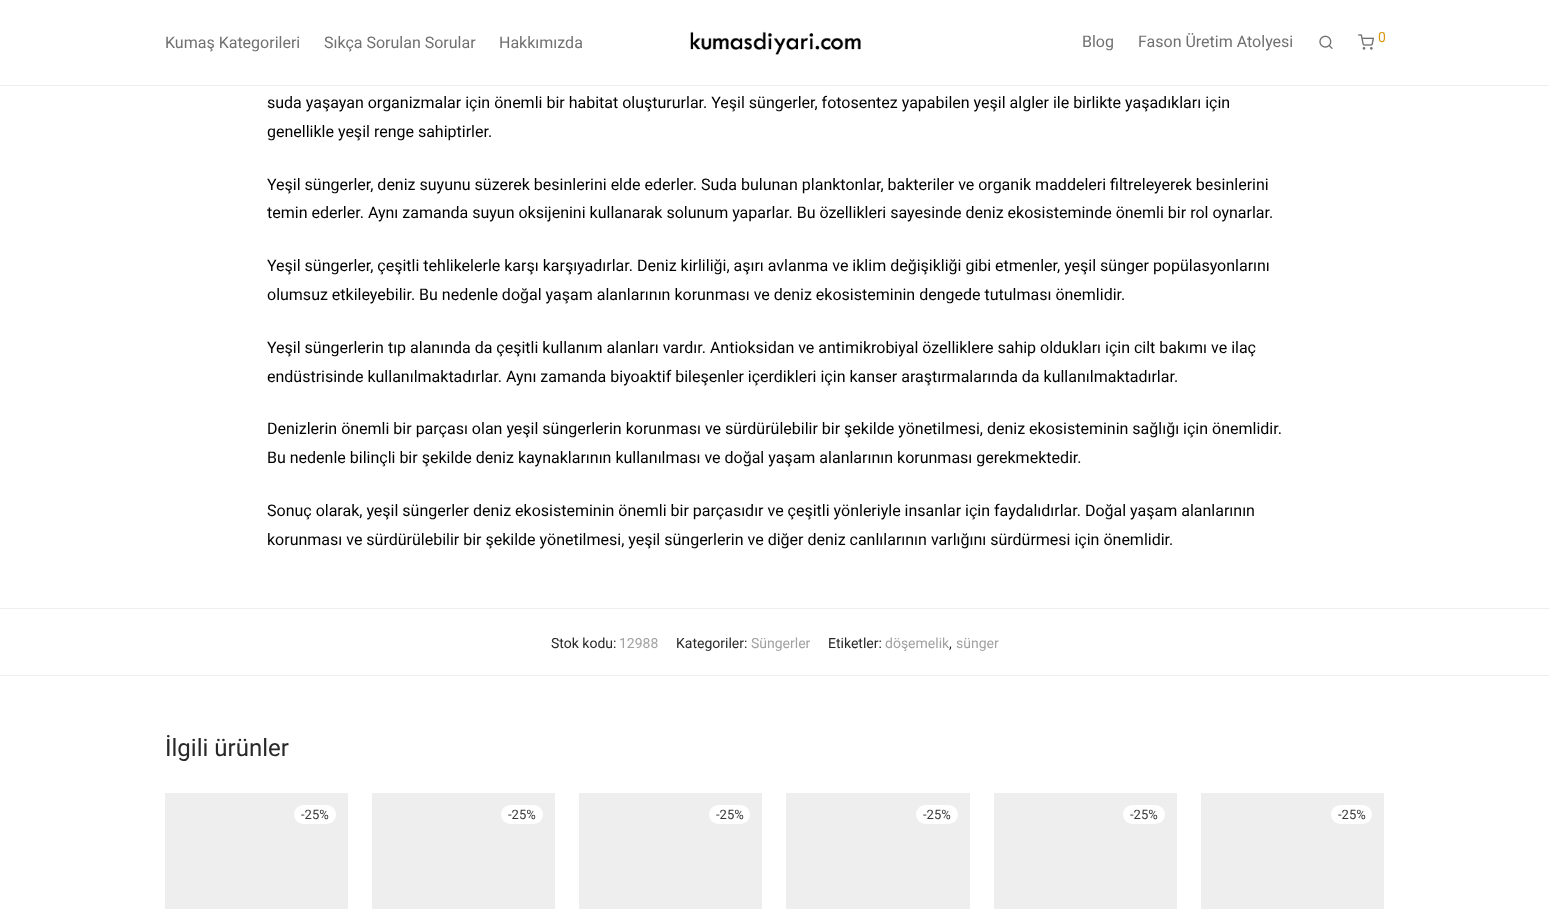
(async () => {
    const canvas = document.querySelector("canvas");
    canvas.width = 1549;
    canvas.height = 909;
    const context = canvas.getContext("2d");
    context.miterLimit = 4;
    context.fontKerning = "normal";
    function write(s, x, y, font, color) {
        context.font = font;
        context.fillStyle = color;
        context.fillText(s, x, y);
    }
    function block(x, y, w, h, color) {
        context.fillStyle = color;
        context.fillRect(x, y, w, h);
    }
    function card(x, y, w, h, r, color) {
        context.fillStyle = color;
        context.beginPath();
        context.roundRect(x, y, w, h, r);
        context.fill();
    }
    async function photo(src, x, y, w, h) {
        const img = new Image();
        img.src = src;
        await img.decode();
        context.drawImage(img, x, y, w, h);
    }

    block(0, 0, 1549, 909, "rgb(255, 255, 255)");
    block(0, 85, 1549, 1, "rgb(238, 238, 238)");
    write("Kumaş Kategorileri", 165, 48, "16px Roboto", "rgb(112, 112, 112)");
    write("Sıkça Sorulan Sorular", 324, 48, "16px Roboto", "rgb(112, 112, 112)");
    write("Hakkımızda", 499, 48, "16px Roboto", "rgb(112, 112, 112)");
    await photo("media/1.png", 690, 31, 171, 24);
    write("Blog", 1082, 47, "16px Roboto", "rgb(112, 112, 112)");
    write("Fason Üretim Atolyesi", 1138, 47, "16px Roboto", "rgb(112, 112, 112)");
    await photo("media/2.png", 1319, 35, 14, 14);
    await photo("media/3.png", 1358, 34, 16, 16);
    write("0", 1378, 42, "14px Roboto", "rgb(220, 152, 20)");
    block(0, 608, 1549, 1, "rgb(238, 238, 238)");
    write("suda yaşayan organizmalar için önemli bir habitat oluştururlar. Yeşil süngerler, fotosentez yapabilen yeşil algler ile birlikte yaşadıkları için", 267, 108, "16px Roboto", "rgb(0, 0, 0)");
    write("genellikle yeşil renge sahiptirler.", 267, 137, "16px Roboto", "rgb(0, 0, 0)");
    write("Yeşil süngerler, deniz suyunu süzerek besinlerini elde ederler. Suda bulunan planktonlar, bakteriler ve organik maddeleri filtreleyerek besinlerini", 267, 190, "16px Roboto", "rgb(0, 0, 0)");
    write("temin ederler. Aynı zamanda suyun oksijenini kullanarak solunum yaparlar. Bu özellikleri sayesinde deniz ekosisteminde önemli bir rol oynarlar.", 267, 218, "16px Roboto", "rgb(0, 0, 0)");
    write("Yeşil süngerler, çeşitli tehlikelerle karşı karşıyadırlar. Deniz kirliliği, aşırı avlanma ve iklim değişikliği gibi etmenler, yeşil sünger popülasyonlarını", 267, 271, "16px Roboto", "rgb(0, 0, 0)");
    write("olumsuz etkileyebilir. Bu nedenle doğal yaşam alanlarının korunması ve deniz ekosisteminin dengede tutulması önemlidir.", 267, 300, "16px Roboto", "rgb(0, 0, 0)");
    write("Yeşil süngerlerin tıp alanında da çeşitli kullanım alanları vardır. Antioksidan ve antimikrobiyal özelliklere sahip oldukları için cilt bakımı ve ilaç", 267, 353, "16px Roboto", "rgb(0, 0, 0)");
    write("endüstrisinde kullanılmaktadırlar. Aynı zamanda biyoaktif bileşenler içerdikleri için kanser araştırmalarında da kullanılmaktadırlar.", 267, 382, "16px Roboto", "rgb(0, 0, 0)");
    write("Denizlerin önemli bir parçası olan yeşil süngerlerin korunması ve sürdürülebilir bir şekilde yönetilmesi, deniz ekosisteminin sağlığı için önemlidir.", 267, 434, "16px Roboto", "rgb(0, 0, 0)");
    write("Bu nedenle bilinçli bir şekilde deniz kaynaklarının kullanılması ve doğal yaşam alanlarının korunması gerekmektedir.", 267, 463, "16px Roboto", "rgb(0, 0, 0)");
    write("Sonuç olarak, yeşil süngerler deniz ekosisteminin önemli bir parçasıdır ve çeşitli yönleriyle insanlar için faydalıdırlar. Doğal yaşam alanlarının", 267, 516, "16px Roboto", "rgb(0, 0, 0)");
    write("korunması ve sürdürülebilir bir şekilde yönetilmesi, yeşil süngerlerin ve diğer deniz canlılarının varlığını sürdürmesi için önemlidir.", 267, 545, "16px Roboto", "rgb(0, 0, 0)");
    write("Stok kodu:", 551, 648, "14px Roboto", "rgb(40, 40, 40)");
    write("12988", 619, 648, "14px Roboto", "rgb(161, 161, 161)");
    write("Kategoriler:", 676, 648, "14px Roboto", "rgb(40, 40, 40)");
    write("Süngerler", 751, 648, "14px Roboto", "rgb(161, 161, 161)");
    write("Etiketler:", 828, 648, "14px Roboto", "rgb(40, 40, 40)");
    write("döşemelik", 885, 648, "14px Roboto", "rgb(161, 161, 161)");
    write(",", 949, 648, "14px Roboto", "rgb(40, 40, 40)");
    write("sünger", 956, 648, "14px Roboto", "rgb(161, 161, 161)");
    block(0, 675, 1549, 1, "rgb(238, 238, 238)");
    write("İlgili ürünler", 165, 756, "24px Roboto", "rgb(40, 40, 40)");
    block(165, 793, 183, 116, "rgb(238, 238, 238)");
    card(294, 805, 42, 19, 9.5, "rgb(255, 255, 255)");
    write("-25%", 301, 819, "13px Roboto", "rgb(55, 55, 55)");
    block(372, 793, 183, 116, "rgb(238, 238, 238)");
    card(501, 805, 42, 19, 9.5, "rgb(255, 255, 255)");
    write("-25%", 508, 819, "13px Roboto", "rgb(55, 55, 55)");
    block(579, 793, 183, 116, "rgb(238, 238, 238)");
    card(709, 805, 41, 19, 9.5, "rgb(255, 255, 255)");
    write("-25%", 716, 819, "13px Roboto", "rgb(55, 55, 55)");
    block(786, 793, 184, 116, "rgb(238, 238, 238)");
    card(916, 805, 42, 19, 9.5, "rgb(255, 255, 255)");
    write("-25%", 923, 819, "13px Roboto", "rgb(55, 55, 55)");
    block(994, 793, 183, 116, "rgb(238, 238, 238)");
    card(1123, 805, 42, 19, 9.5, "rgb(255, 255, 255)");
    write("-25%", 1130, 819, "13px Roboto", "rgb(55, 55, 55)");
    block(1201, 793, 183, 116, "rgb(238, 238, 238)");
    card(1331, 805, 41, 19, 9.5, "rgb(255, 255, 255)");
    write("-25%", 1338, 819, "13px Roboto", "rgb(55, 55, 55)");
})();
